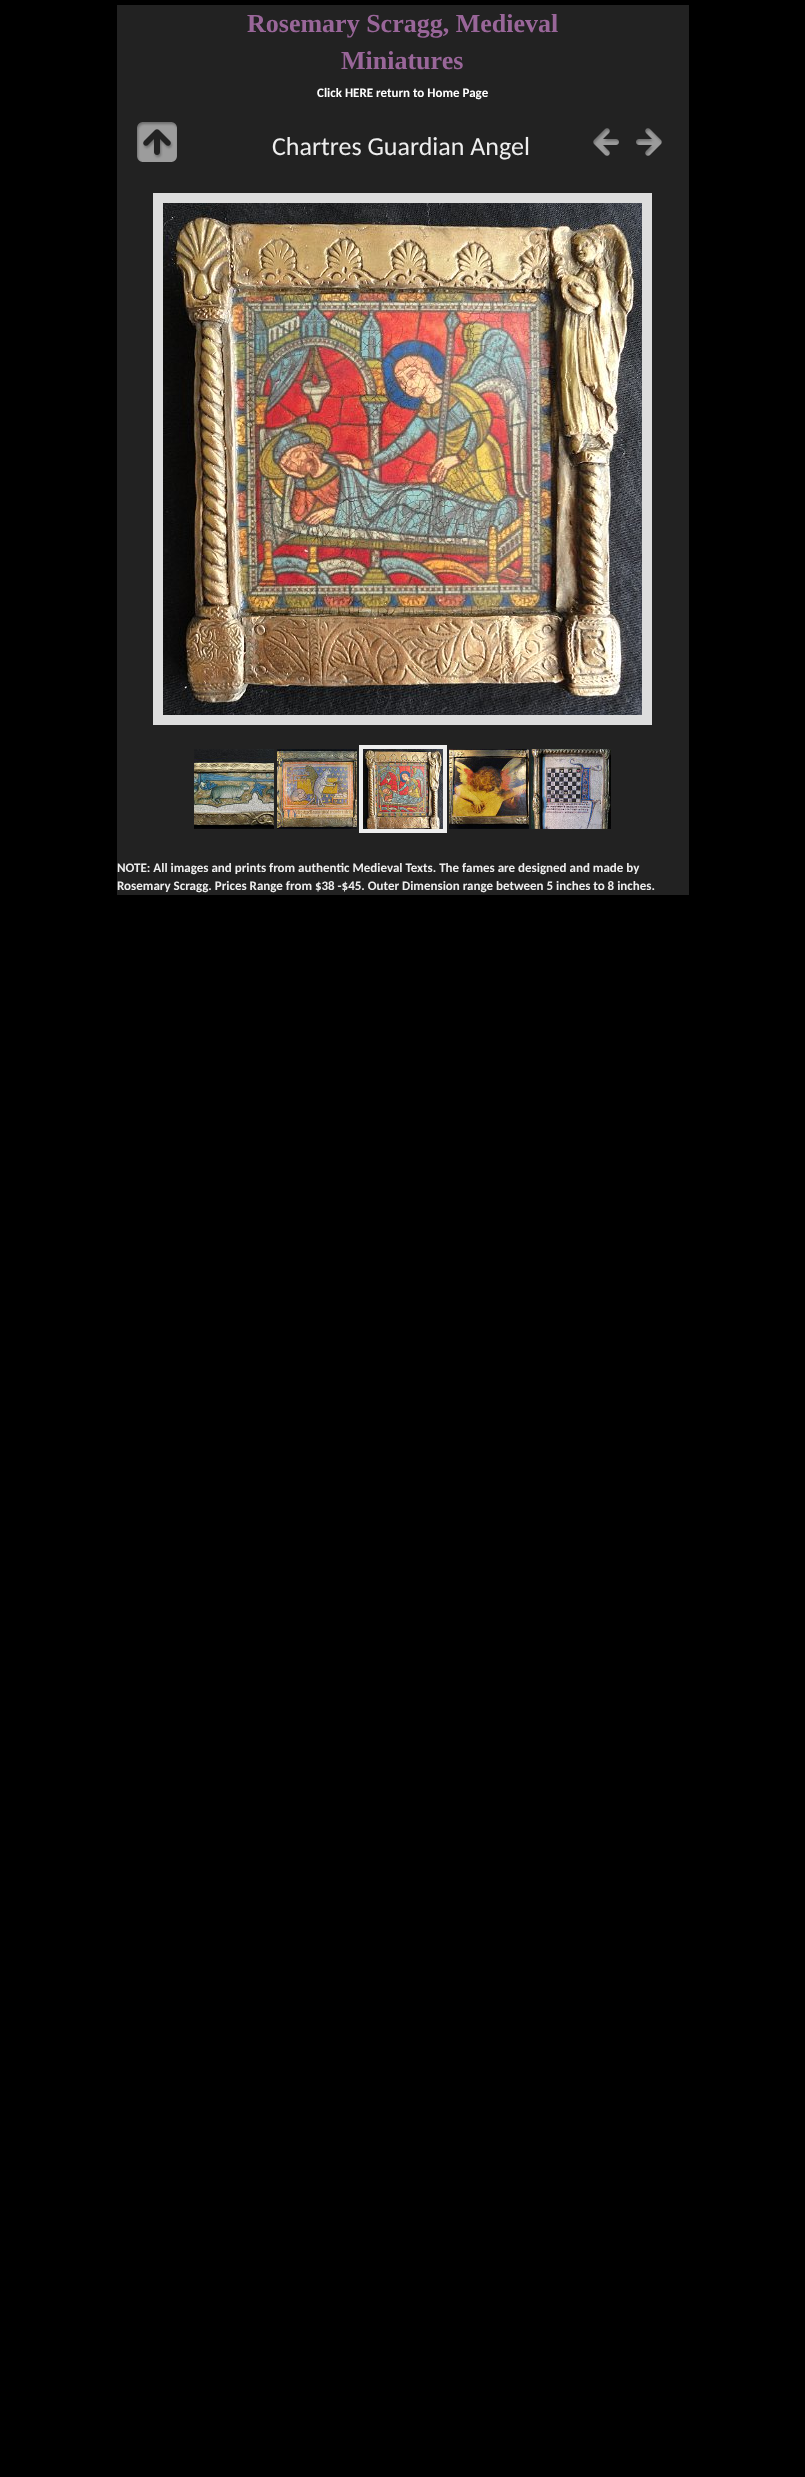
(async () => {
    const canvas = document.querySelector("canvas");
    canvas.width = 805;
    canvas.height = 2477;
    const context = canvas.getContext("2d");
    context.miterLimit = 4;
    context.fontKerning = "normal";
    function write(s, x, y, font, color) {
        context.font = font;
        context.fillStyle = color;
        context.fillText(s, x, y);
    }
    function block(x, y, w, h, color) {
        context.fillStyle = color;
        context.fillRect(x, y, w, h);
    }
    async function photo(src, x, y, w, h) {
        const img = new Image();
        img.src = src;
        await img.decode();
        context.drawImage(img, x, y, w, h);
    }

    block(0, 0, 805, 2477, "rgb(0, 0, 0)");
    block(117, 5, 572, 890, "rgb(34, 34, 34)");
    write("Rosemary Scragg, Medieval", 247, 32, "bold 26px Liberation Serif", "rgb(153, 102, 153)");
    write("Miniatures", 341, 69, "bold 26px Liberation Serif", "rgb(153, 102, 153)");
    write("Click HERE return to Home Page", 317, 97, "bold 13px Carlito", "rgb(255, 255, 255)");
    await photo("media/1.png", 137, 122, 40, 40);
    write("Chartres Guardian Angel", 272, 155, "26px Carlito", "rgb(238, 238, 238)");
    await photo("media/2.png", 593, 128, 26, 28);
    await photo("media/3.png", 636, 128, 26, 28);
    block(153, 193, 499, 532, "rgb(221, 221, 221)");
    await photo("media/4.png", 163, 203, 479, 512);
    await photo("media/5.png", 194, 749, 80, 80);
    await photo("media/6.png", 277, 749, 80, 80);
    context.strokeStyle = "rgb(238, 238, 238)";
    context.lineWidth = 4;
    context.strokeRect(361, 747, 84, 84);
    await photo("media/7.png", 363, 749, 80, 80);
    await photo("media/8.png", 449, 749, 80, 80);
    await photo("media/9.png", 531, 749, 80, 80);
    write("NOTE: All images and prints from authentic Medieval Texts. The fames are designed and made by", 117, 872, "bold 13px Carlito", "rgb(238, 238, 238)");
    write("Rosemary Scragg. Prices Range from $38 -$45. Outer Dimension range between 5 inches to 8 inches.", 117, 890, "bold 13px Carlito", "rgb(238, 238, 238)");
})();
